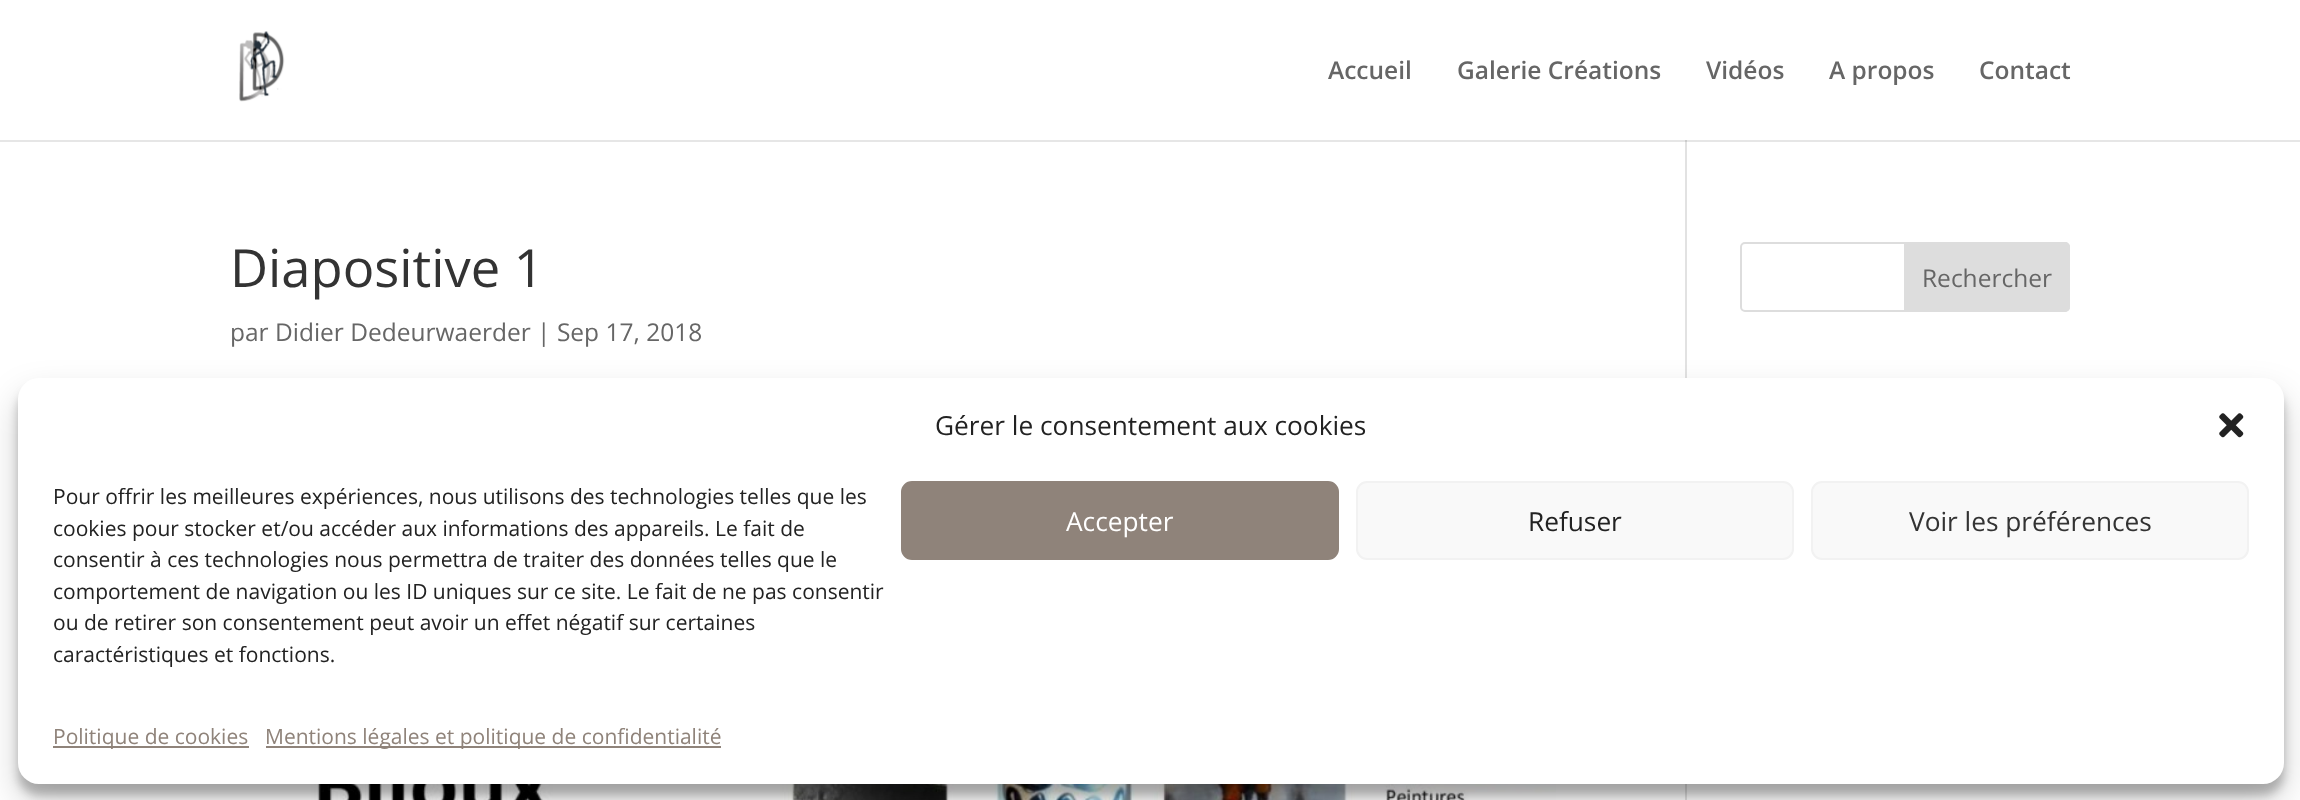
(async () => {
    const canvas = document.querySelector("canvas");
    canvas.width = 2300;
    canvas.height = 800;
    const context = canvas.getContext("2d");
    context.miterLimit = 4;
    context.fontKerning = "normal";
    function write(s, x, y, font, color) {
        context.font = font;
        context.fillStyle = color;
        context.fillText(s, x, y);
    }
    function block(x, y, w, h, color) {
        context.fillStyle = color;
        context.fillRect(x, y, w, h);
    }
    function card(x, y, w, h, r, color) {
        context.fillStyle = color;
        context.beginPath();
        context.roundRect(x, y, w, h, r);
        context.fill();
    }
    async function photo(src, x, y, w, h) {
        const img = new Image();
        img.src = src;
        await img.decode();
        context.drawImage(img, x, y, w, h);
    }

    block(0, 0, 2300, 800, "rgb(255, 255, 255)");
    await photo("media/1.png", 239, 31, 46, 71);
    write("Accueil", 1328, 79, "600 24.5px Open Sans", "rgb(102, 102, 102)");
    write("Galerie Créations", 1457, 79, "600 24.5px Open Sans", "rgb(102, 102, 102)");
    write("Vidéos", 1706, 79, "600 24.5px Open Sans", "rgb(102, 102, 102)");
    write("A propos", 1829, 79, "600 24.5px Open Sans", "rgb(102, 102, 102)");
    write("Contact", 1979, 79, "600 24.5px Open Sans", "rgb(102, 102, 102)");
    block(0, 140, 2300, 2, "rgb(230, 230, 230)");
    block(1685, 140, 2, 660, "rgb(226, 226, 226)");
    block(1685, 140, 2, 2, "rgb(203, 203, 203)");
    write("Diapositive 1", 230, 287, "52.5px Open Sans", "rgb(51, 51, 51)");
    write("par Didier Dedeurwaerder | Sep 17, 2018", 230, 341, "24.5px Open Sans", "rgb(102, 102, 102)");
    await photo("media/2.png", 311, 784, 1245, 16);
    context.beginPath();
    context.roundRect(1741, 243, 328, 68, 4);
    context.strokeStyle = "rgb(221, 221, 221)";
    context.lineWidth = 2;
    context.stroke();
    context.fillStyle = "rgb(221, 221, 221)";
    context.beginPath();
    context.roundRect(1905, 243, 164, 68, [0, 4, 4, 0]);
    context.fill();
    context.stroke();
    write("Rechercher", 1922, 287, "24.5px Open Sans", "rgb(102, 102, 102)");
    context.fillStyle = "rgba(0, 0, 0, 0.23)";
    context.filter = "blur(5px)";
    context.beginPath();
    context.roundRect(18, 389, 2266, 406, 21);
    context.fill();
    context.filter = "none";
    context.fillStyle = "rgba(0, 0, 0, 0.19)";
    context.filter = "blur(17.5px)";
    context.beginPath();
    context.roundRect(18, 396, 2266, 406, 21);
    context.fill();
    context.filter = "none";
    card(18, 378, 2266, 406, 21, "rgb(255, 255, 255)");
    write("Gérer le consentement aux cookies", 935, 435, "26.25px Open Sans", "rgb(34, 34, 34)");
    await photo("media/3.png", 2219, 413, 25, 25);
    write("Pour offrir les meilleures expériences, nous utilisons des technologies telles que les", 53, 504, "21px Open Sans", "rgb(34, 34, 34)");
    write("cookies pour stocker et/ou accéder aux informations des appareils. Le fait de", 53, 536, "21px Open Sans", "rgb(34, 34, 34)");
    write("consentir à ces technologies nous permettra de traiter des données telles que le", 53, 567, "21px Open Sans", "rgb(34, 34, 34)");
    write("comportement de navigation ou les ID uniques sur ce site. Le fait de ne pas consentir", 53, 599, "21px Open Sans", "rgb(34, 34, 34)");
    write("ou de retirer son consentement peut avoir un effet négatif sur certaines", 53, 630, "21px Open Sans", "rgb(34, 34, 34)");
    write("caractéristiques et fonctions.", 53, 662, "21px Open Sans", "rgb(34, 34, 34)");
    context.fillStyle = "rgb(143, 131, 122)";
    context.beginPath();
    context.roundRect(902, 482, 436, 77, 10);
    context.fill();
    context.strokeStyle = "rgb(143, 131, 122)";
    context.stroke();
    write("Accepter", 1066, 531, "26.25px Open Sans", "rgb(255, 255, 255)");
    context.fillStyle = "rgb(249, 249, 249)";
    context.beginPath();
    context.roundRect(1357, 482, 436, 77, 10);
    context.fill();
    context.strokeStyle = "rgb(242, 242, 242)";
    context.stroke();
    write("Refuser", 1528, 531, "26.25px Open Sans", "rgb(34, 34, 34)");
    context.fillStyle = "rgb(249, 249, 249)";
    context.beginPath();
    context.roundRect(1812, 482, 436, 77, 10);
    context.fill();
    context.stroke();
    write("Voir les préférences", 1909, 531, "26.25px Open Sans", "rgb(51, 51, 51)");
    block(53, 746, 196, 2, "rgb(143, 131, 122)");
    write("Politique de cookies", 53, 744, "21px Open Sans", "rgb(143, 131, 122)");
    block(266, 746, 455, 2, "rgb(143, 131, 122)");
    write("Mentions légales et politique de confidentialité", 265, 744, "21px Open Sans", "rgb(143, 131, 122)");
})();
